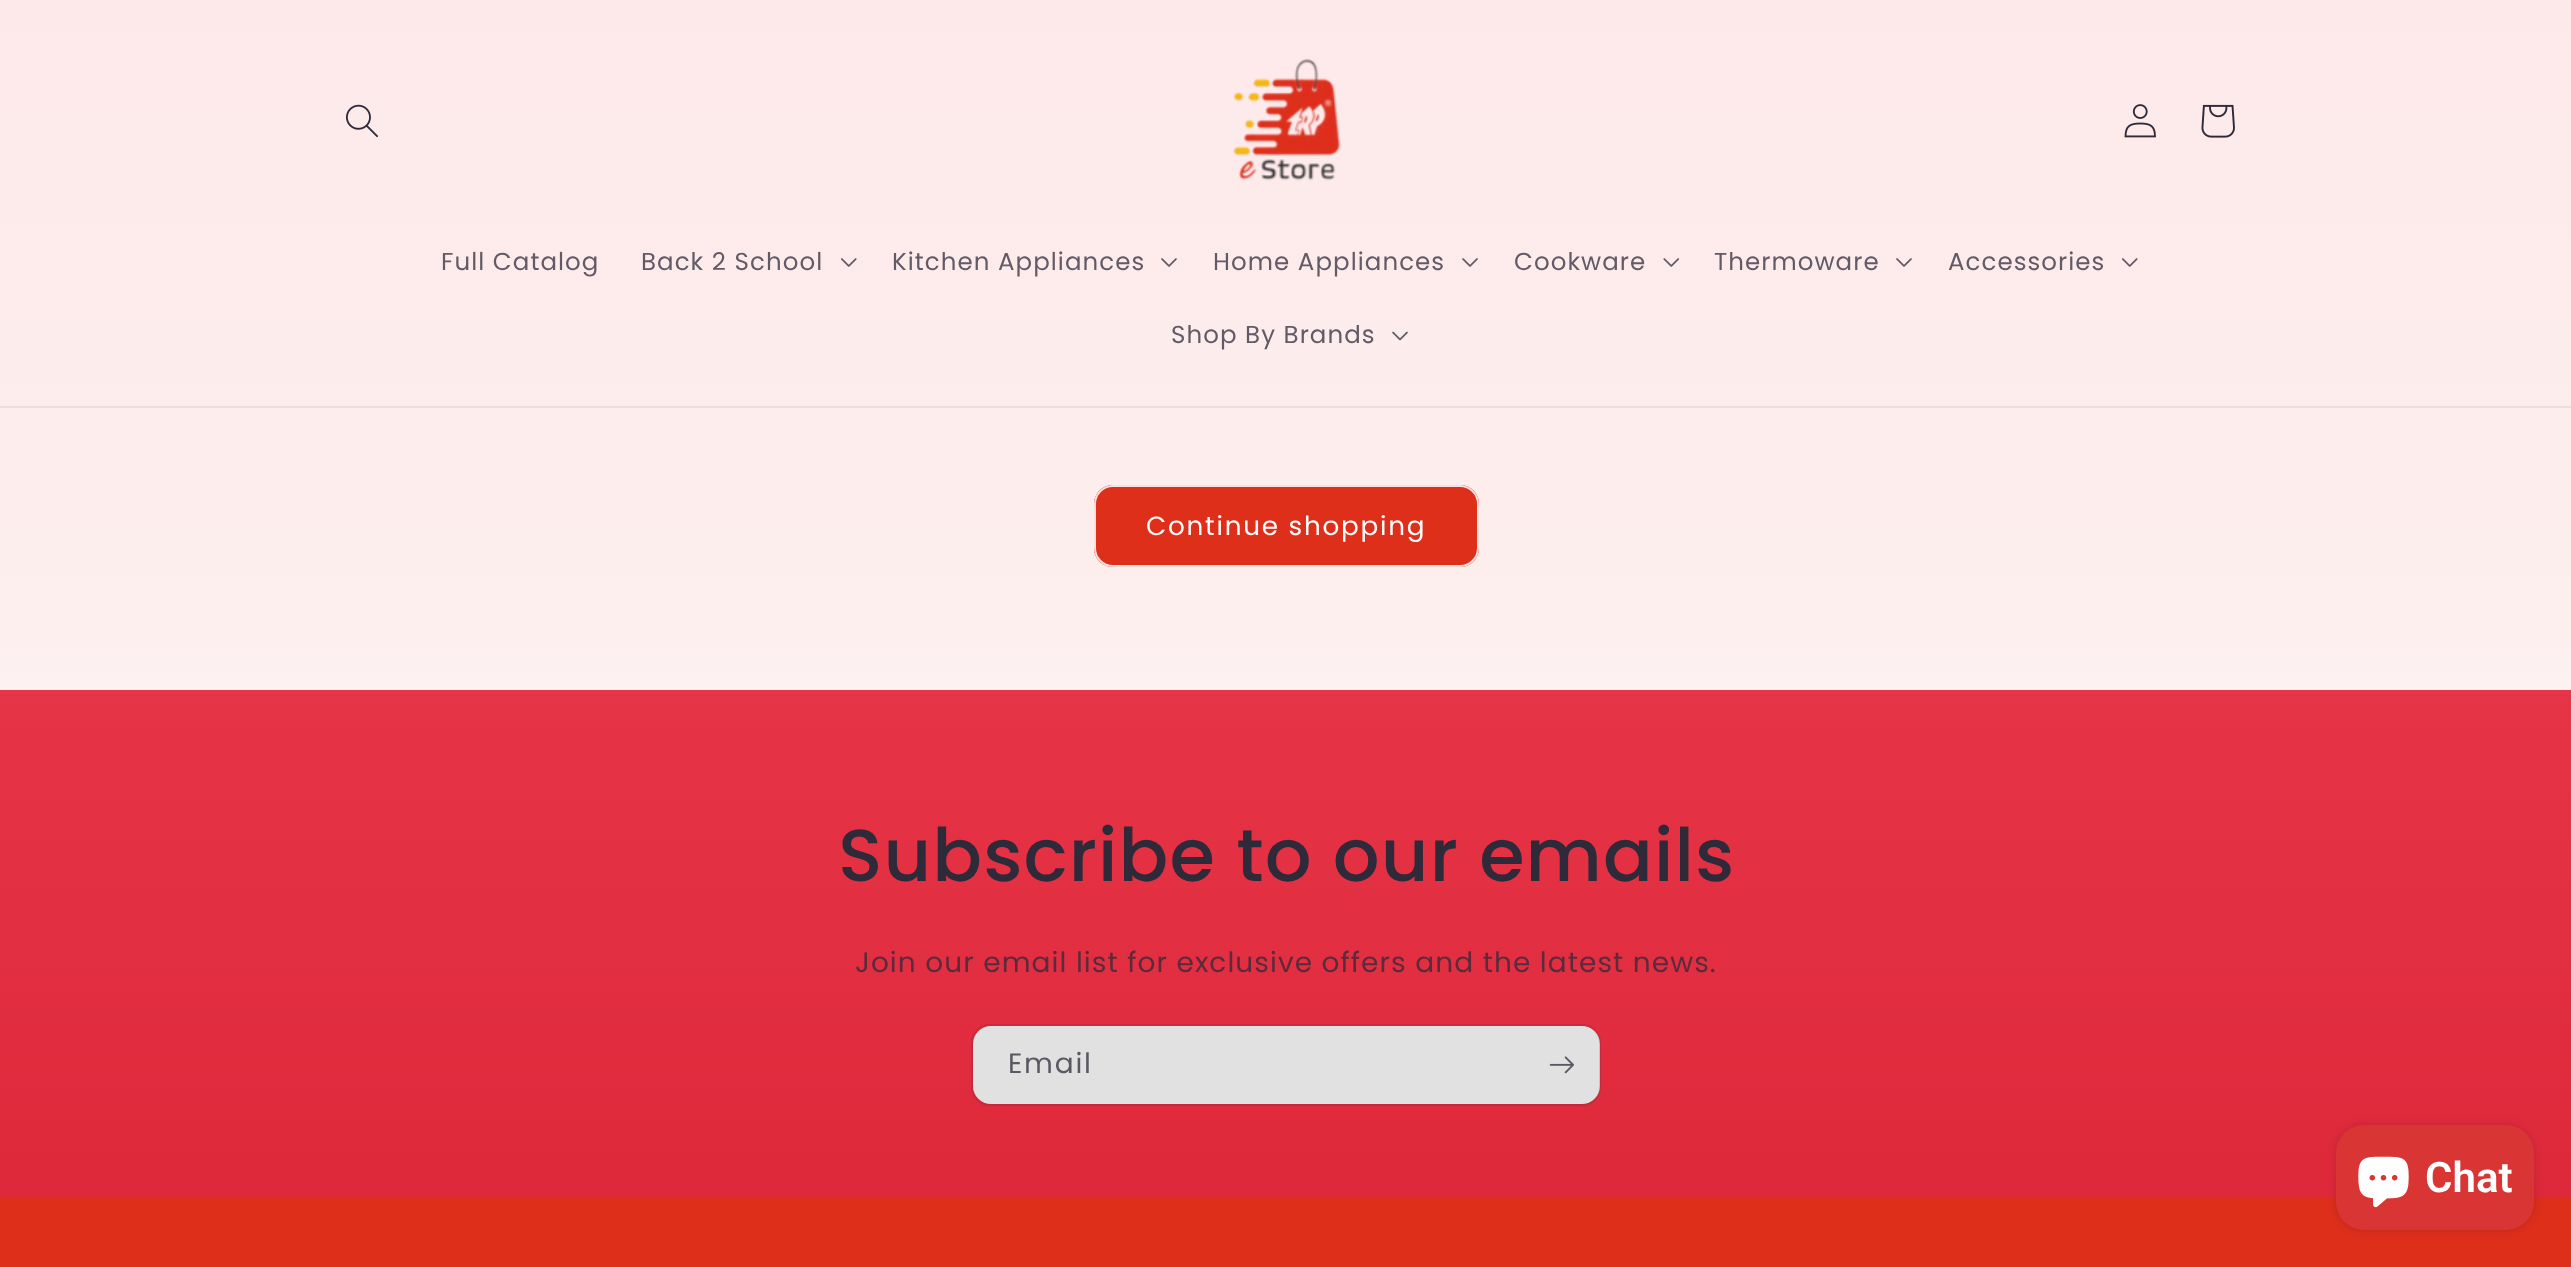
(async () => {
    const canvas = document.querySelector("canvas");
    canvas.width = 2571;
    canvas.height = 1267;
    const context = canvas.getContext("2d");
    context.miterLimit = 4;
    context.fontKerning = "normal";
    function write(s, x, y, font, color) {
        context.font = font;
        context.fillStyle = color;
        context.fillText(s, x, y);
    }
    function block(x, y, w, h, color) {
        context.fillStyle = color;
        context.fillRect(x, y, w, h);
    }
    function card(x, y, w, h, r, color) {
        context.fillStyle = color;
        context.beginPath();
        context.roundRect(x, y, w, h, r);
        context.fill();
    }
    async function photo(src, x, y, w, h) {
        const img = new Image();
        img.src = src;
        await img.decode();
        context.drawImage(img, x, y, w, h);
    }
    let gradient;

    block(0, 0, 2571, 1267, "rgb(255, 255, 255)");
    gradient = context.createLinearGradient(1286, 0, 1286, 1267);
    gradient.addColorStop(0, "rgb(253, 233, 233)");
    gradient.addColorStop(0.51, "rgb(253, 239, 239)");
    gradient.addColorStop(0.74, "rgb(255, 255, 255)");
    gradient.addColorStop(1, "rgb(255, 255, 255)");
    context.fillStyle = gradient;
    context.fillRect(0, 408, 2571, 282);
    context.fillRect(0, 0, 2571, 406);
    block(0, 406, 2571, 2, "rgb(236, 221, 223)");
    await photo("media/1.png", 346, 104, 32, 34);
    await photo("media/2.png", 1233, 58, 108, 123);
    await photo("media/3.png", 2124, 104, 32, 34);
    await photo("media/4.png", 2201, 104, 34, 34);
    context.letterSpacing = "1.05px";
    write("Full Catalog", 441, 270, "24.5px Poppins", "rgb(98, 90, 102)");
    write("Back 2 School", 641, 270, "24.5px Poppins", "rgb(98, 90, 102)");
    await photo("media/5.png", 841, 258, 16, 9);
    write("Kitchen Appliances", 892, 270, "24.5px Poppins", "rgb(98, 90, 102)");
    await photo("media/6.png", 1161, 258, 16, 9);
    write("Home Appliances", 1213, 270, "24.5px Poppins", "rgb(98, 90, 102)");
    await photo("media/6.png", 1462, 258, 16, 9);
    write("Cookware", 1514, 270, "24.5px Poppins", "rgb(98, 90, 102)");
    await photo("media/7.png", 1663, 258, 16, 9);
    write("Thermoware", 1714, 270, "24.5px Poppins", "rgb(98, 90, 102)");
    await photo("media/6.png", 1896, 258, 16, 9);
    write("Accessories", 1948, 270, "24.5px Poppins", "rgb(98, 90, 102)");
    await photo("media/5.png", 2122, 258, 16, 9);
    write("Shop By Brands", 1171, 343, "24.5px Poppins", "rgb(98, 90, 102)");
    await photo("media/8.png", 1392, 331, 16, 10);
    card(1094, 485, 385, 82, 19, "rgb(222, 47, 27)");
    context.beginPath();
    context.roundRect(1095, 486, 383, 80, 18);
    context.strokeStyle = "rgb(222, 47, 27)";
    context.lineWidth = 2;
    context.stroke();
    context.beginPath();
    context.roundRect(1095, 486, 383, 80, 18);
    context.strokeStyle = "rgba(255, 255, 255, 0.85)";
    context.stroke();
    context.letterSpacing = "1.75px";
    write("Continue shopping", 1146, 535, "26.25px Poppins", "rgb(255, 255, 255)");
    gradient = context.createLinearGradient(1286, 0, 1286, 1267);
    gradient.addColorStop(0, "rgb(240, 69, 87)");
    gradient.addColorStop(1, "rgb(221, 39, 57)");
    context.fillStyle = gradient;
    context.fillRect(0, 690, 2571, 507);
    context.letterSpacing = "1.1px";
    write("Subscribe to our emails", 838, 881, "500 73.5px Poppins", "rgb(46, 42, 57)");
    context.letterSpacing = "1.05px";
    write("Join our email list for exclusive offers and the latest news.", 855, 972, "28px Poppins", "rgb(91, 43, 59)");
    card(973, 1026, 627, 78, 18, "rgb(225, 225, 225)");
    context.beginPath();
    context.roundRect(972, 1025, 628, 80, 18);
    context.strokeStyle = "rgba(46, 42, 57, 0.15)";
    context.stroke();
    context.letterSpacing = "1.75px";
    write("Email", 1008, 1073, "28px Poppins", "rgb(91, 88, 99)");
    await photo("media/9.png", 1549, 1056, 25, 18);
    block(0, 1197, 2571, 70, "rgb(222, 47, 27)");
    context.fillStyle = "rgba(0, 0, 0, 0.15)";
    context.filter = "blur(4.5px)";
    context.beginPath();
    context.roundRect(2336, 1125, 198, 105, 28);
    context.fill();
    context.filter = "none";
    card(2336, 1125, 198, 105, 28, "rgb(218, 53, 53)");
    await photo("media/10.png", 2358, 1156, 51, 52);
    context.letterSpacing = "0px";
    write("Chat", 2425, 1192, "600 42px Roboto", "rgb(255, 255, 255)");
})();
